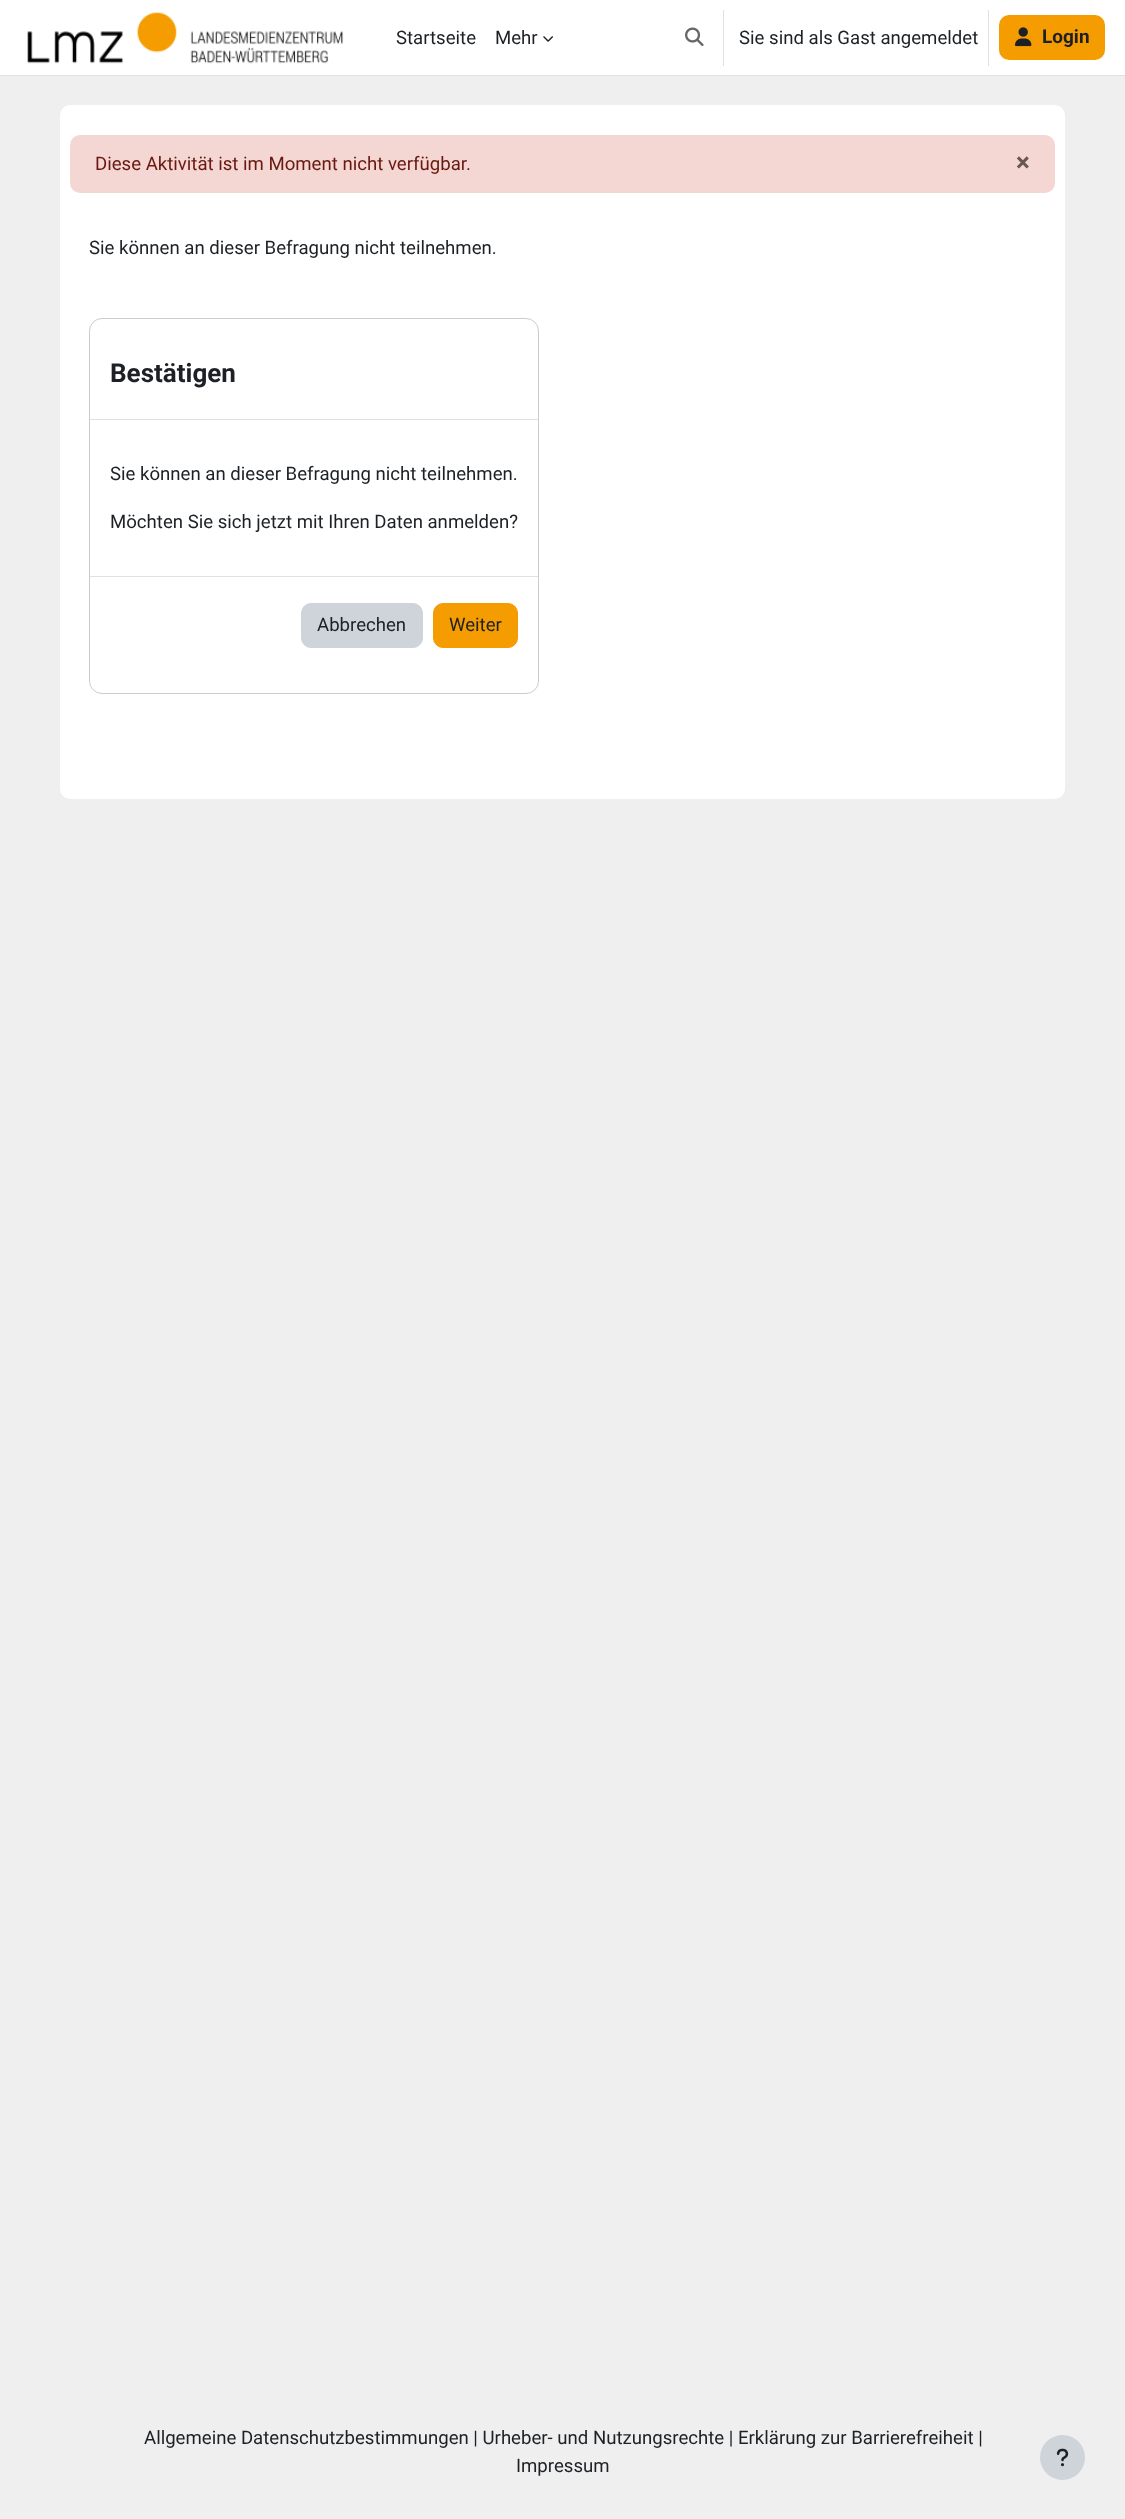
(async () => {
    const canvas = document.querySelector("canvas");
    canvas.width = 1125;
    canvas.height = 2519;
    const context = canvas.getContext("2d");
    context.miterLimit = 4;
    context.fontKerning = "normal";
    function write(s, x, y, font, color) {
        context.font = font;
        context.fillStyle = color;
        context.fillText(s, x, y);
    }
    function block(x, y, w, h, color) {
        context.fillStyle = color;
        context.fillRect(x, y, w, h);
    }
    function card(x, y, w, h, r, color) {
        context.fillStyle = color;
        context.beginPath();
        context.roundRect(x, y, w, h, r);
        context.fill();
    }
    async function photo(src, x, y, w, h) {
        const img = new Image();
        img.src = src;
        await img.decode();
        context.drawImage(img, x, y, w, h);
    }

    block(0, 0, 1125, 2519, "rgb(239, 239, 239)");
    block(0, 0, 1125, 75, "rgb(255, 255, 255)");
    block(0, 75, 1125, 1, "rgb(222, 226, 230)");
    await photo("media/1.png", 27, 12, 317, 52);
    write("Startseite", 396, 44, "18.6px Roboto", "rgb(29, 33, 37)");
    write("Mehr", 495, 44, "18.6px Roboto", "rgb(29, 33, 37)");
    await photo("media/2.png", 543, 36, 10, 6);
    await photo("media/3.png", 685, 27, 19, 19);
    block(723, 10, 1, 56, "rgb(222, 226, 230)");
    write("Sie sind als Gast angemeldet", 739, 44, "18.6px Roboto", "rgb(29, 33, 37)");
    block(988, 10, 1, 56, "rgb(222, 226, 230)");
    card(999, 15, 106, 45, 10, "rgb(245, 156, 0)");
    await photo("media/4.png", 1015, 27, 17, 20);
    write("Login", 1042, 43, "bold 19px Roboto", "rgb(29, 33, 37)");
    card(60, 105, 1005, 694, 10, "rgb(255, 255, 255)");
    card(70, 135, 985, 58, 10, "rgb(244, 214, 210)");
    write("Diese Aktivität ist im Moment nicht verfügbar.", 95, 170, "18.6px Roboto", "rgb(105, 25, 17)");
    write("×", 1016, 171, "bold 26px Roboto", "rgb(105, 87, 85)");
    write("Sie können an dieser Befragung nicht teilnehmen.", 89, 254, "18.6px Roboto", "rgb(29, 33, 37)");
    context.beginPath();
    context.roundRect(89.5, 318.5, 449, 375, 12.5);
    context.strokeStyle = "rgb(204, 204, 204)";
    context.stroke();
    block(90, 419, 448, 1, "rgb(222, 226, 230)");
    write("Bestätigen", 110, 382, "bold 26px Roboto", "rgb(29, 33, 37)");
    write("Sie können an dieser Befragung nicht teilnehmen.", 110, 480, "18.6px Roboto", "rgb(29, 33, 37)");
    write("Möchten Sie sich jetzt mit Ihren Daten anmelden?", 110, 528, "18.6px Roboto", "rgb(29, 33, 37)");
    block(90, 576, 448, 1, "rgb(222, 226, 230)");
    context.fillStyle = "rgb(206, 212, 218)";
    context.beginPath();
    context.roundRect(301.5, 603.5, 121, 44, 9.5);
    context.fill();
    context.strokeStyle = "rgb(206, 212, 218)";
    context.stroke();
    write("Abbrechen", 317, 631, "18.6px Roboto", "rgb(29, 33, 37)");
    context.fillStyle = "rgb(245, 156, 0)";
    context.beginPath();
    context.roundRect(433.5, 603.5, 84, 44, 9.5);
    context.fill();
    context.strokeStyle = "rgb(245, 156, 0)";
    context.stroke();
    write("Weiter", 449, 631, "18.6px Roboto", "rgb(29, 33, 37)");
    write("Allgemeine Datenschutzbestimmungen | Urheber- und Nutzungsrechte | Erklärung zur Barrierefreiheit |", 144, 2444, "18.6px Roboto", "rgb(29, 33, 37)");
    write("Impressum", 516, 2472, "18.6px Roboto", "rgb(29, 33, 37)");
    context.fillStyle = "rgb(206, 212, 218)";
    context.beginPath();
    context.arc(1062.5, 2457.5, 22.5, 0, Math.PI * 2);
    context.fill();
    await photo("media/5.png", 1056, 2448, 13, 19);
})();
